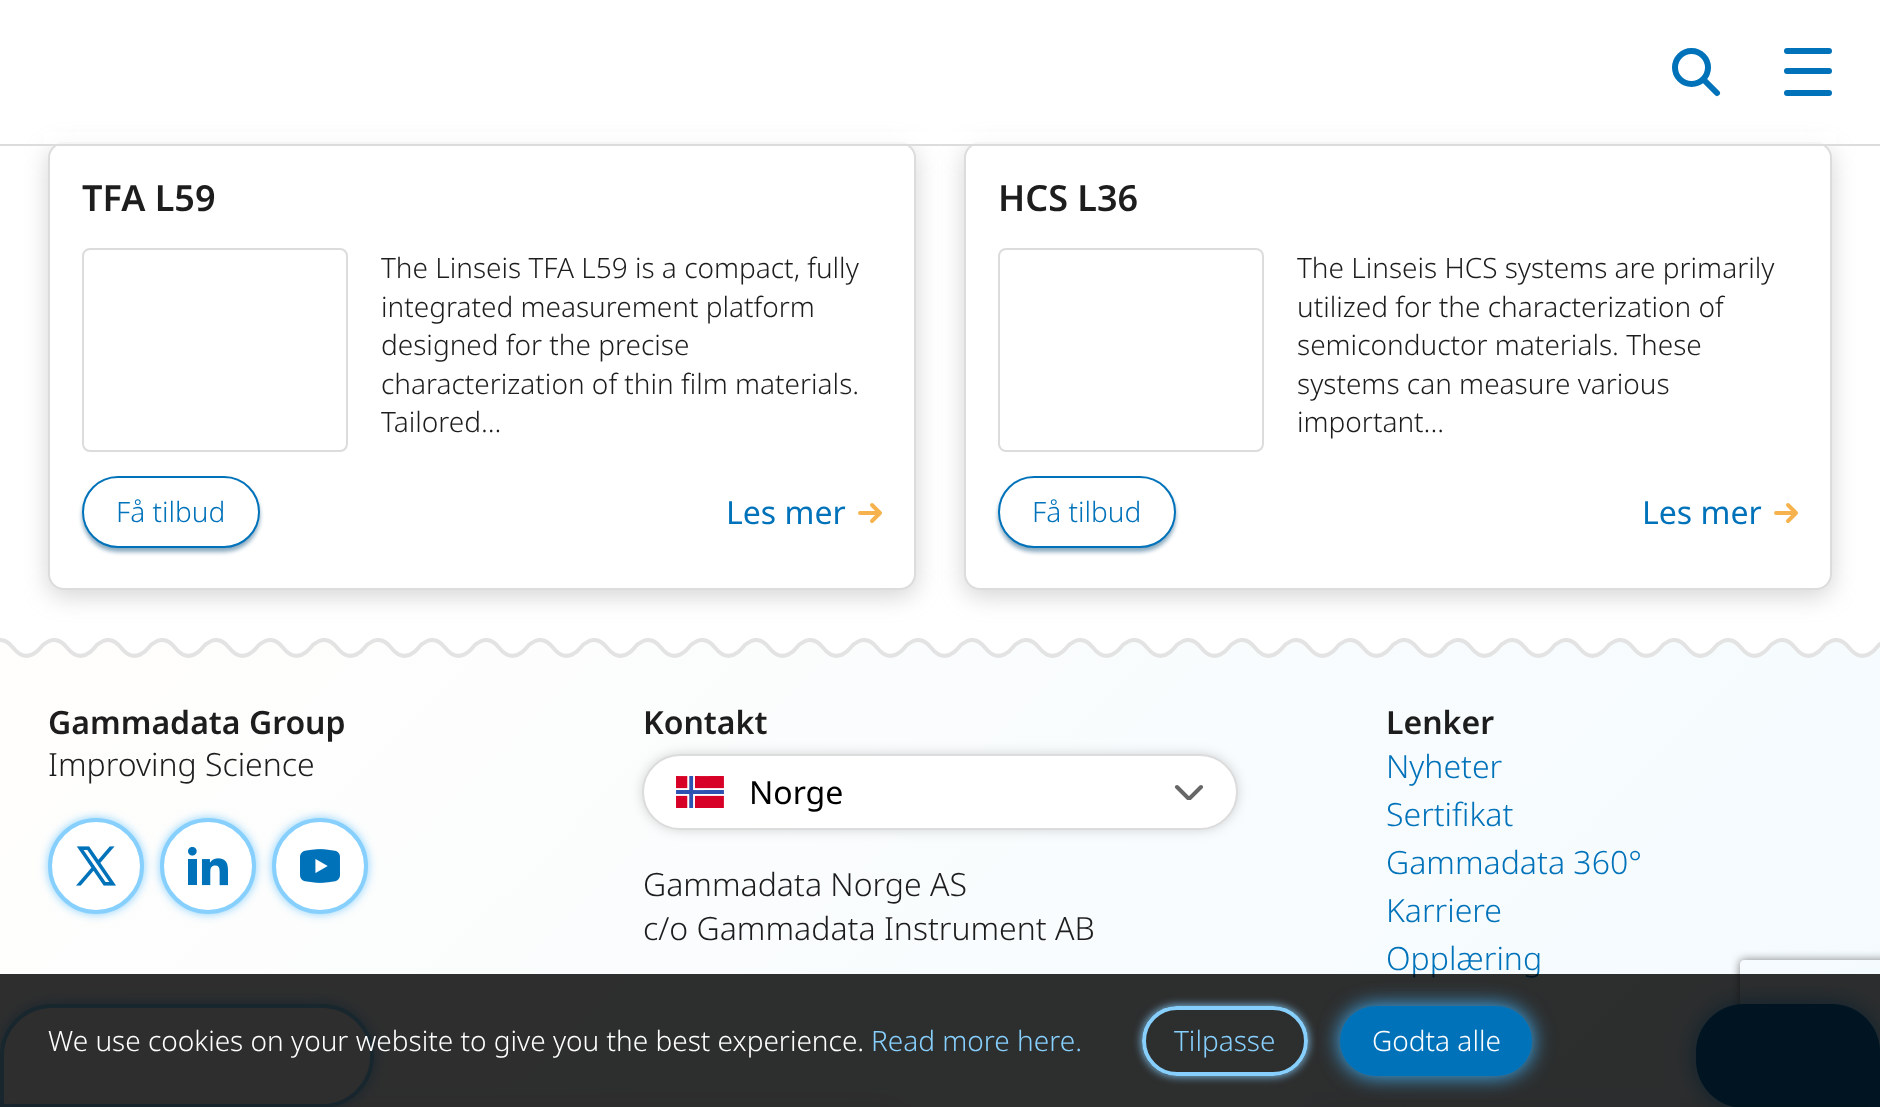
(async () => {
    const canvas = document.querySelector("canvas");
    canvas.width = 1880;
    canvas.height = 1107;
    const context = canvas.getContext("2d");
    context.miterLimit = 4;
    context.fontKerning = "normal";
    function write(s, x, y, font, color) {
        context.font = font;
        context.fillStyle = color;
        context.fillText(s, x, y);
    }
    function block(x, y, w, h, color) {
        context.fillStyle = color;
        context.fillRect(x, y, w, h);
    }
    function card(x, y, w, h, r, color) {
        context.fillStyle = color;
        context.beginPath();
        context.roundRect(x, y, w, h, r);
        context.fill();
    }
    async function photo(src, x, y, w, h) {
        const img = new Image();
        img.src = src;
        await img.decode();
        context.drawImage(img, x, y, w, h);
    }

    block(0, 0, 1880, 1107, "rgb(255, 255, 255)");
    context.fillStyle = "rgba(133, 133, 133, 0.35)";
    context.filter = "blur(12px)";
    context.beginPath();
    context.roundRect(48, 148, 868, 448, 16);
    context.fill();
    context.filter = "none";
    context.fillStyle = "rgb(255, 255, 255)";
    context.beginPath();
    context.roundRect(49, 143, 866, 446, 15);
    context.fill();
    context.strokeStyle = "rgb(220, 220, 220)";
    context.lineWidth = 2;
    context.stroke();
    context.fillStyle = "rgba(133, 133, 133, 0.35)";
    context.filter = "blur(12px)";
    context.beginPath();
    context.roundRect(964, 148, 868, 448, 16);
    context.fill();
    context.filter = "none";
    context.fillStyle = "rgb(255, 255, 255)";
    context.beginPath();
    context.roundRect(965, 143, 866, 446, 15);
    context.fill();
    context.stroke();
    block(44, 132, 1792, 12, "rgba(255, 255, 255, 0.7)");
    block(0, 144, 1880, 2, "rgb(220, 220, 220)");
    context.beginPath();
    context.arc(1691.5, 67.5, 16.5, 0, Math.PI * 2);
    context.strokeStyle = "rgb(0, 114, 186)";
    context.lineWidth = 6;
    context.stroke();
    context.beginPath();
    context.moveTo(1705, 81);
    context.lineTo(1717, 93);
    context.lineCap = "round";
    context.stroke();
    context.beginPath();
    context.moveTo(1787, 51);
    context.lineTo(1829, 51);
    context.moveTo(1787, 71);
    context.lineTo(1829, 71);
    context.moveTo(1787, 93);
    context.lineTo(1829, 93);
    context.stroke();
    write("TFA L59", 82, 211, "600 36px Noto Sans", "rgb(29, 29, 29)");
    context.beginPath();
    context.roundRect(83, 249, 264, 202, 7);
    context.strokeStyle = "rgb(220, 220, 220)";
    context.lineWidth = 2;
    context.stroke();
    write("The Linseis TFA L59 is a compact, fully", 381, 278, "300 28px Noto Sans", "rgb(29, 29, 29)");
    write("integrated measurement platform", 381, 317, "300 28px Noto Sans", "rgb(29, 29, 29)");
    write("designed for the precise", 381, 355, "300 28px Noto Sans", "rgb(29, 29, 29)");
    write("characterization of thin film materials.", 381, 394, "300 28px Noto Sans", "rgb(29, 29, 29)");
    write("Tailored...", 381, 432, "300 28px Noto Sans", "rgb(29, 29, 29)");
    context.fillStyle = "rgb(137, 169, 191)";
    context.filter = "blur(2px)";
    context.beginPath();
    context.roundRect(82, 480, 178, 72, 36);
    context.fill();
    context.filter = "none";
    context.fillStyle = "rgb(255, 255, 255)";
    context.beginPath();
    context.roundRect(83, 477, 176, 70, 35);
    context.fill();
    context.strokeStyle = "rgb(0, 114, 186)";
    context.stroke();
    write("Få tilbud", 116, 522, "300 28px Noto Sans", "rgb(0, 114, 186)");
    write("Les mer", 726, 524, "32px Noto Sans", "rgb(0, 114, 186)");
    context.beginPath();
    context.moveTo(872, 505);
    context.lineTo(880, 513);
    context.lineTo(872, 521);
    context.strokeStyle = "rgb(246, 179, 77)";
    context.lineWidth = 3.9;
    context.lineJoin = "round";
    context.stroke();
    context.beginPath();
    context.moveTo(860, 513);
    context.lineTo(879.5, 513);
    context.lineJoin = "miter";
    context.stroke();
    write("HCS L36", 998, 211, "600 36px Noto Sans", "rgb(29, 29, 29)");
    context.beginPath();
    context.roundRect(999, 249, 264, 202, 7);
    context.strokeStyle = "rgb(220, 220, 220)";
    context.lineWidth = 2;
    context.stroke();
    write("The Linseis HCS systems are primarily", 1297, 278, "300 28px Noto Sans", "rgb(29, 29, 29)");
    write("utilized for the characterization of", 1297, 317, "300 28px Noto Sans", "rgb(29, 29, 29)");
    write("semiconductor materials. These", 1297, 355, "300 28px Noto Sans", "rgb(29, 29, 29)");
    write("systems can measure various", 1297, 394, "300 28px Noto Sans", "rgb(29, 29, 29)");
    write("important...", 1297, 432, "300 28px Noto Sans", "rgb(29, 29, 29)");
    context.fillStyle = "rgb(137, 169, 191)";
    context.filter = "blur(2px)";
    context.beginPath();
    context.roundRect(998, 480, 178, 72, 36);
    context.fill();
    context.filter = "none";
    context.fillStyle = "rgb(255, 255, 255)";
    context.beginPath();
    context.roundRect(999, 477, 176, 70, 35);
    context.fill();
    context.strokeStyle = "rgb(0, 114, 186)";
    context.stroke();
    write("Få tilbud", 1032, 522, "300 28px Noto Sans", "rgb(0, 114, 186)");
    write("Les mer", 1642, 524, "32px Noto Sans", "rgb(0, 114, 186)");
    context.beginPath();
    context.moveTo(1788, 505);
    context.lineTo(1796, 513);
    context.lineTo(1788, 521);
    context.strokeStyle = "rgb(246, 179, 77)";
    context.lineWidth = 3.9;
    context.lineJoin = "round";
    context.stroke();
    context.beginPath();
    context.moveTo(1776, 513);
    context.lineTo(1795.5, 513);
    context.lineJoin = "miter";
    context.stroke();
    await photo("media/1.png", 0, 638, 1880, 469);
    write("Gammadata Group", 48, 734, "600 32px Noto Sans", "rgb(29, 29, 29)");
    write("Improving Science", 48, 776, "300 32px Noto Sans", "rgb(29, 29, 29)");
    context.fillStyle = "rgb(135, 208, 254)";
    context.filter = "blur(5px)";
    context.beginPath();
    context.roundRect(48, 818, 96, 96, 48);
    context.fill();
    context.filter = "none";
    context.fillStyle = "rgb(255, 255, 255)";
    context.beginPath();
    context.arc(96, 866, 46, 0, Math.PI * 2);
    context.fill();
    context.strokeStyle = "rgb(135, 208, 254)";
    context.lineWidth = 4;
    context.stroke();
    await photo("media/2.png", 76, 846, 40, 40);
    context.fillStyle = "rgb(135, 208, 254)";
    context.filter = "blur(5px)";
    context.beginPath();
    context.roundRect(160, 818, 96, 96, 48);
    context.fill();
    context.filter = "none";
    context.fillStyle = "rgb(255, 255, 255)";
    context.beginPath();
    context.arc(208, 866, 46, 0, Math.PI * 2);
    context.fill();
    context.stroke();
    await photo("media/3.png", 188, 846, 40, 40);
    context.fillStyle = "rgb(135, 208, 254)";
    context.filter = "blur(5px)";
    context.beginPath();
    context.roundRect(272, 818, 96, 96, 48);
    context.fill();
    context.filter = "none";
    context.fillStyle = "rgb(255, 255, 255)";
    context.beginPath();
    context.arc(320, 866, 46, 0, Math.PI * 2);
    context.fill();
    context.stroke();
    await photo("media/4.png", 300, 849, 40, 34);
    write("Kontakt", 643, 734, "600 32px Noto Sans", "rgb(29, 29, 29)");
    context.fillStyle = "rgba(0, 0, 0, 0.16)";
    context.filter = "blur(6px)";
    context.beginPath();
    context.roundRect(642, 754, 596, 76, 38);
    context.fill();
    context.filter = "none";
    context.fillStyle = "rgb(255, 255, 255)";
    context.beginPath();
    context.roundRect(643, 755, 594, 74, 37);
    context.fill();
    context.strokeStyle = "rgb(220, 220, 220)";
    context.lineWidth = 2;
    context.stroke();
    await photo("media/5.png", 676, 776, 48, 32);
    write("Norge", 749, 804, "32px Noto Sans", "rgb(0, 0, 0)");
    context.save();
    context.beginPath();
    context.rect(1174, 784, 30, 16);
    context.clip();
    context.beginPath();
    context.moveTo(1177, 787);
    context.lineTo(1189, 799);
    context.lineTo(1201, 787);
    context.strokeStyle = "rgb(102, 103, 102)";
    context.lineWidth = 4;
    context.lineJoin = "round";
    context.stroke();
    context.restore();
    write("Gammadata Norge AS", 643, 896, "300 32px Noto Sans", "rgb(29, 29, 29)");
    write("c/o Gammadata Instrument AB", 643, 940, "300 32px Noto Sans", "rgb(29, 29, 29)");
    write("Lenker", 1386, 734, "600 32px Noto Sans", "rgb(29, 29, 29)");
    write("Nyheter", 1386, 778, "300 32px Noto Sans", "rgb(0, 114, 186)");
    write("Sertifikat", 1386, 826, "300 32px Noto Sans", "rgb(0, 114, 186)");
    write("Gammadata 360°", 1386, 874, "300 32px Noto Sans", "rgb(0, 114, 186)");
    write("Karriere", 1386, 922, "300 32px Noto Sans", "rgb(0, 114, 186)");
    write("Opplæring", 1386, 970, "300 32px Noto Sans", "rgb(0, 114, 186)");
    context.fillStyle = "rgb(135, 208, 254)";
    context.filter = "blur(7px)";
    context.beginPath();
    context.roundRect(0, 1004, 374, 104, 52);
    context.fill();
    context.filter = "none";
    context.fillStyle = "rgb(255, 255, 255)";
    context.beginPath();
    context.moveTo(52, 1006);
    context.lineTo(322, 1006);
    context.bezierCurveTo(349.5, 1006, 372, 1028.5, 372, 1056);
    context.bezierCurveTo(372, 1083.5, 349.5, 1106, 322, 1106);
    context.lineTo(2, 1106);
    context.lineTo(2, 1056);
    context.bezierCurveTo(2, 1028.5, 24.5, 1006, 52, 1006);
    context.closePath();
    context.fill();
    context.strokeStyle = "rgb(135, 208, 254)";
    context.lineWidth = 4;
    context.stroke();
    context.fillStyle = "rgba(0, 0, 0, 0.16)";
    context.filter = "blur(12px)";
    context.beginPath();
    context.roundRect(0, 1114, 902, 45, 16);
    context.fill();
    context.filter = "none";
    context.fillStyle = "rgb(65, 182, 255)";
    context.filter = "blur(12px)";
    context.beginPath();
    context.roundRect(1696, 1004, 184, 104, 48);
    context.fill();
    context.filter = "none";
    context.save();
    context.beginPath();
    context.moveTo(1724, 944);
    context.lineTo(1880, 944);
    context.lineTo(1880, 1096);
    context.lineTo(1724, 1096);
    context.closePath();
    context.moveTo(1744, 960);
    context.lineTo(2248, 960);
    context.bezierCurveTo(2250, 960, 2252, 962, 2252, 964);
    context.lineTo(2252, 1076);
    context.bezierCurveTo(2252, 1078, 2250, 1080, 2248, 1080);
    context.lineTo(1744, 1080);
    context.bezierCurveTo(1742, 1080, 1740, 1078, 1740, 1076);
    context.lineTo(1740, 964);
    context.bezierCurveTo(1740, 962, 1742, 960, 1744, 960);
    context.closePath();
    context.clip("evenodd");
    context.fillStyle = "rgb(128, 128, 128)";
    context.filter = "blur(5px)";
    context.beginPath();
    context.roundRect(1740, 960, 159, 120, 4);
    context.fill();
    context.filter = "none";
    context.restore();
    context.fillStyle = "rgb(0, 114, 186)";
    context.beginPath();
    context.moveTo(1744, 1004);
    context.lineTo(1832, 1004);
    context.bezierCurveTo(1858.5, 1004, 1880, 1025.5, 1880, 1052);
    context.lineTo(1880, 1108);
    context.lineTo(1744, 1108);
    context.bezierCurveTo(1717.5, 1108, 1696, 1086.5, 1696, 1060);
    context.lineTo(1696, 1052);
    context.bezierCurveTo(1696, 1025.5, 1717.5, 1004, 1744, 1004);
    context.closePath();
    context.fill();
    context.fillStyle = "rgba(0, 0, 0, 0.16)";
    context.filter = "blur(12px)";
    context.beginPath();
    context.roundRect(1312, 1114, 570, 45, 16);
    context.fill();
    context.filter = "none";
    block(0, 974, 1880, 133, "rgba(0, 0, 0, 0.82)");
    write("We use cookies on your website to give you the best experience.", 48, 1051, "300 28px Noto Sans", "rgb(255, 255, 255)");
    write("Read more here.", 871, 1051, "300 28px Noto Sans", "rgb(135, 208, 254)");
    context.save();
    context.beginPath();
    context.moveTo(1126, 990);
    context.lineTo(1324, 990);
    context.lineTo(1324, 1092);
    context.lineTo(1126, 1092);
    context.closePath();
    context.moveTo(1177, 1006);
    context.lineTo(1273, 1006);
    context.bezierCurveTo(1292.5, 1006, 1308, 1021.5, 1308, 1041);
    context.bezierCurveTo(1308, 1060.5, 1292.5, 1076, 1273, 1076);
    context.lineTo(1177, 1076);
    context.bezierCurveTo(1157.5, 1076, 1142, 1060.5, 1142, 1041);
    context.bezierCurveTo(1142, 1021.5, 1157.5, 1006, 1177, 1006);
    context.closePath();
    context.clip("evenodd");
    context.filter = "blur(5px)";
    context.beginPath();
    context.roundRect(1142, 1006, 166, 70, 35);
    context.fill();
    context.filter = "none";
    context.restore();
    context.beginPath();
    context.roundRect(1144, 1008, 162, 66, 33);
    context.stroke();
    write("Tilpasse", 1174, 1051, "300 28px Noto Sans", "rgb(135, 208, 254)");
    context.fillStyle = "rgb(65, 182, 255)";
    context.filter = "blur(10.5px)";
    context.beginPath();
    context.roundRect(1340, 1006, 192, 70, 35);
    context.fill();
    context.filter = "none";
    card(1340, 1006, 192, 70, 35, "rgb(0, 114, 186)");
    write("Godta alle", 1372, 1051, "300 28px Noto Sans", "rgb(255, 255, 255)");
})();
